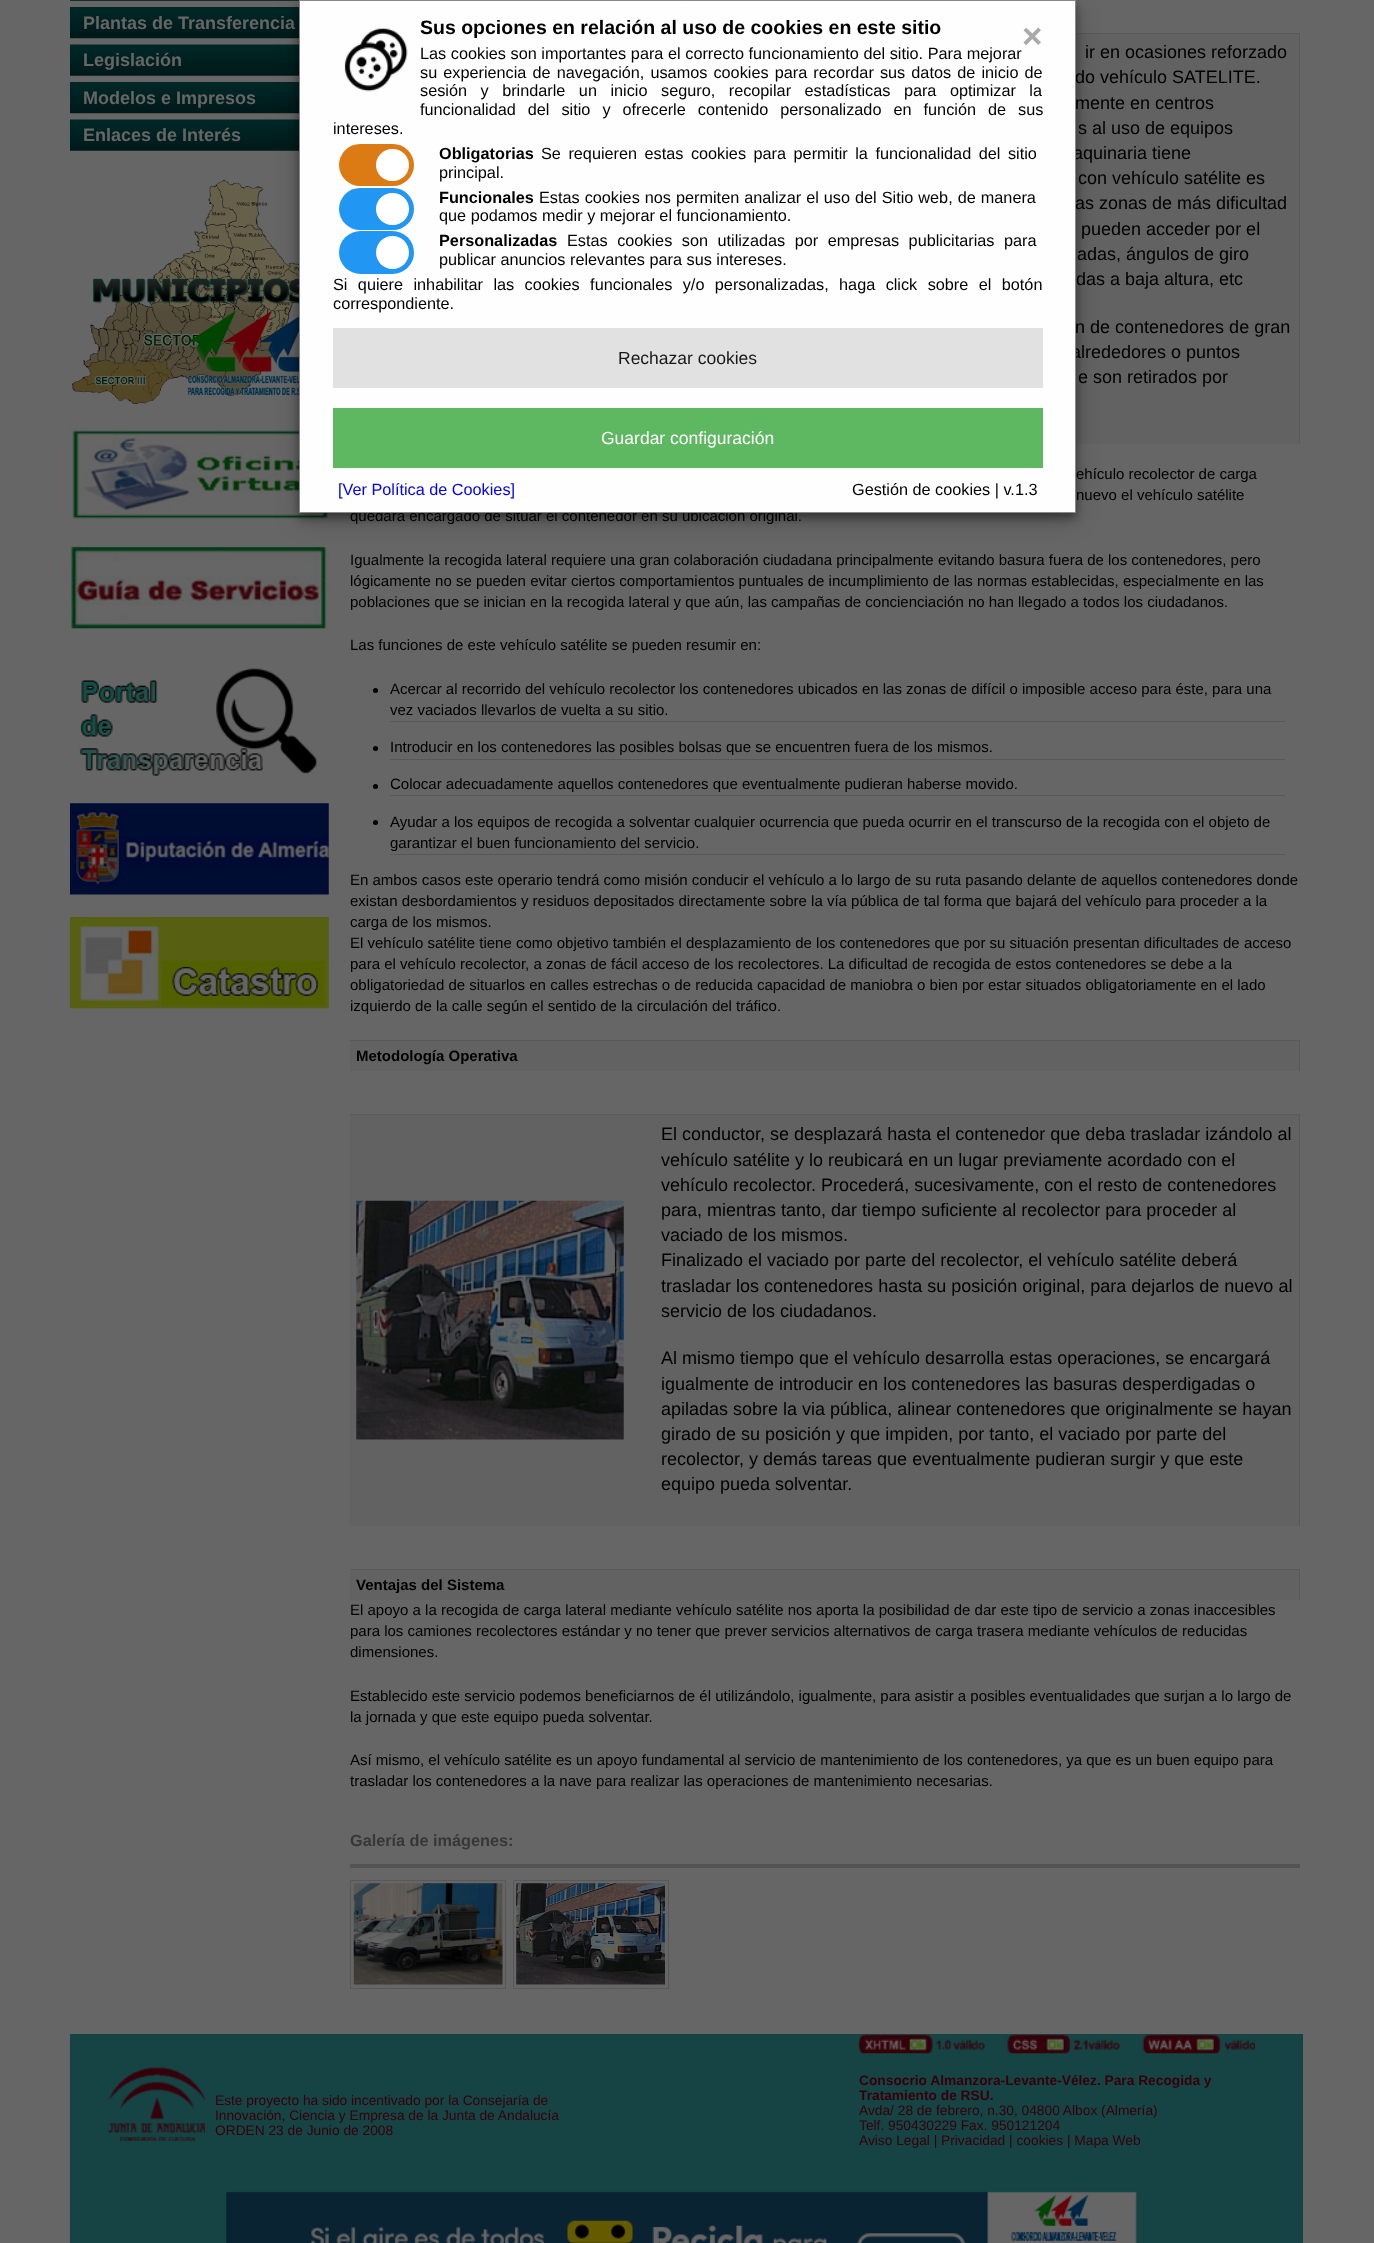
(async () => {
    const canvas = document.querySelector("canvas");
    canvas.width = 1374;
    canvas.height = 2243;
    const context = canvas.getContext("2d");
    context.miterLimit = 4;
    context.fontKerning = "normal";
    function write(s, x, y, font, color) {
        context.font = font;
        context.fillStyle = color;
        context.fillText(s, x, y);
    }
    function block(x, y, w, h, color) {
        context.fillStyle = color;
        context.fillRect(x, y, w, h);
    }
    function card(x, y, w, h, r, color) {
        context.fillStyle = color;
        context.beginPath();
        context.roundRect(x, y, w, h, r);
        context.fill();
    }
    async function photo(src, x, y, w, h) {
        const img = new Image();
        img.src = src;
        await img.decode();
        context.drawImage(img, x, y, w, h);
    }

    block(0, 0, 1374, 2243, "rgb(102, 102, 102)");
    await photo("media/1.png", 70, 0, 229, 1);
    await photo("media/2.png", 70, 7, 229, 32);
    write("Plantas de Transferencia", 83, 29, "bold 18px Liberation Sans", "rgb(102, 102, 102)");
    await photo("media/3.png", 70, 44, 229, 32);
    write("Legislación", 83, 66, "bold 18px Liberation Sans", "rgb(102, 102, 102)");
    await photo("media/4.png", 70, 82, 229, 32);
    write("Modelos e Impresos", 83, 104, "bold 18px Liberation Sans", "rgb(102, 102, 102)");
    await photo("media/5.png", 70, 119, 229, 32);
    write("Enlaces de Interés", 83, 141, "bold 18px Liberation Sans", "rgb(102, 102, 102)");
    await photo("media/6.png", 72, 179, 227, 225);
    await photo("media/7.png", 70, 428, 259, 91);
    await photo("media/8.png", 70, 546, 259, 83);
    await photo("media/9.png", 79, 668, 238, 108);
    await photo("media/10.png", 70, 803, 259, 92);
    await photo("media/11.png", 70, 917, 259, 92);
    block(1076, 33, 224, 1, "rgb(89, 89, 89)");
    block(1299, 33, 1, 411, "rgb(89, 89, 89)");
    block(1076, 34, 223, 410, "rgb(98, 98, 98)");
    write("ir en ocasiones reforzado", 1085, 58, "18px Liberation Sans", "rgb(0, 0, 0)");
    write("do vehículo SATELITE.", 1075, 83, "18px Liberation Sans", "rgb(0, 0, 0)");
    write("mente en centros", 1075, 109, "18px Liberation Sans", "rgb(0, 0, 0)");
    write("s al uso de equipos", 1078, 134, "18px Liberation Sans", "rgb(0, 0, 0)");
    write("aquinaria tiene", 1073, 159, "18px Liberation Sans", "rgb(0, 0, 0)");
    write("con vehículo satélite es", 1078, 184, "18px Liberation Sans", "rgb(0, 0, 0)");
    write("as zonas de más dificultad", 1075, 209, "18px Liberation Sans", "rgb(0, 0, 0)");
    write("pueden acceder por el", 1081, 235, "18px Liberation Sans", "rgb(0, 0, 0)");
    write("adas, ángulos de giro", 1077, 260, "18px Liberation Sans", "rgb(0, 0, 0)");
    write("das a baja altura, etc", 1076, 285, "18px Liberation Sans", "rgb(0, 0, 0)");
    write("n de contenedores de gran", 1075, 333, "18px Liberation Sans", "rgb(0, 0, 0)");
    write("alrededores o puntos", 1071, 358, "18px Liberation Sans", "rgb(0, 0, 0)");
    write("e son retirados por", 1078, 383, "18px Liberation Sans", "rgb(0, 0, 0)");
    write("ehículo recolector de carga", 1076, 479, "15px Liberation Sans", "rgb(0, 0, 0)");
    write("nuevo el vehículo satélite", 1076, 500, "15px Liberation Sans", "rgb(0, 0, 0)");
    write("quedará encargado de situar el contenedor en su ubicación original.", 350, 521, "15px Liberation Sans", "rgb(0, 0, 0)");
    write("Igualmente la recogida lateral requiere una gran colaboración ciudadana principalmente evitando basura fuera de los contenedores, pero", 350, 565, "15px Liberation Sans", "rgb(0, 0, 0)");
    write("lógicamente no se pueden evitar ciertos comportamientos puntuales de incumplimiento de las normas establecidas, especialmente en las", 350, 586, "15px Liberation Sans", "rgb(0, 0, 0)");
    write("poblaciones que se inician en la recogida lateral y que aún, las campañas de concienciación no han llegado a todos los ciudadanos.", 350, 607, "15px Liberation Sans", "rgb(0, 0, 0)");
    write("Las funciones de este vehículo satélite se pueden resumir en:", 350, 650, "15px Liberation Sans", "rgb(0, 0, 0)");
    block(390, 721, 895, 1, "rgb(88, 88, 88)");
    context.fillStyle = "rgb(0, 0, 0)";
    context.beginPath();
    context.arc(375.5, 690.5, 2.5, 0, Math.PI * 2);
    context.fill();
    write("Acercar al recorrido del vehículo recolector los contenedores ubicados en las zonas de difícil o imposible acceso para éste, para una", 390, 694, "15px Liberation Sans", "rgb(0, 0, 0)");
    write("vez vaciados llevarlos de vuelta a su sitio.", 390, 715, "15px Liberation Sans", "rgb(0, 0, 0)");
    block(390, 759, 895, 1, "rgb(88, 88, 88)");
    context.fillStyle = "rgb(0, 0, 0)";
    context.beginPath();
    context.arc(375.5, 748.5, 2.5, 0, Math.PI * 2);
    context.fill();
    write("Introducir en los contenedores las posibles bolsas que se encuentren fuera de los mismos.", 390, 752, "15px Liberation Sans", "rgb(0, 0, 0)");
    block(390, 795, 895, 1, "rgb(88, 88, 88)");
    context.fillStyle = "rgb(0, 0, 0)";
    context.beginPath();
    context.arc(375.5, 786.5, 2.5, 0, Math.PI * 2);
    context.fill();
    write("Colocar adecuadamente aquellos contenedores que eventualmente pudieran haberse movido.", 390, 789, "15px Liberation Sans", "rgb(0, 0, 0)");
    block(390, 854, 895, 1, "rgb(88, 88, 88)");
    context.fillStyle = "rgb(0, 0, 0)";
    context.beginPath();
    context.arc(375.5, 822.5, 2.5, 0, Math.PI * 2);
    context.fill();
    write("Ayudar a los equipos de recogida a solventar cualquier ocurrencia que pueda ocurrir en el transcurso de la recogida con el objeto de", 390, 827, "15px Liberation Sans", "rgb(0, 0, 0)");
    write("garantizar el buen funcionamiento del servicio.", 390, 848, "15px Liberation Sans", "rgb(0, 0, 0)");
    write("En ambos casos este operario tendrá como misión conducir el vehículo a lo largo de su ruta pasando delante de aquellos contenedores donde", 350, 885, "15px Liberation Sans", "rgb(0, 0, 0)");
    write("existan desbordamientos y residuos depositados directamente sobre la vía pública de tal forma que bajará del vehículo para proceder a la", 350, 906, "15px Liberation Sans", "rgb(0, 0, 0)");
    write("carga de los mismos.", 350, 927, "15px Liberation Sans", "rgb(0, 0, 0)");
    write("El vehículo satélite tiene como objetivo también el desplazamiento de los contenedores que por su situación presentan dificultades de acceso", 350, 948, "15px Liberation Sans", "rgb(0, 0, 0)");
    write("para el vehículo recolector, a zonas de fácil acceso de los recolectores. La dificultad de recogida de estos contenedores se debe a la", 350, 969, "15px Liberation Sans", "rgb(0, 0, 0)");
    write("obligatoriedad de situarlos en calles estrechas o de reducida capacidad de maniobra o bien por estar situados obligatoriamente en el lado", 350, 990, "15px Liberation Sans", "rgb(0, 0, 0)");
    write("izquierdo de la calle según el sentido de la circulación del tráfico.", 350, 1011, "15px Liberation Sans", "rgb(0, 0, 0)");
    block(350, 1040, 950, 1, "rgb(89, 89, 89)");
    block(1299, 1040, 1, 31, "rgb(89, 89, 89)");
    block(350, 1041, 949, 30, "rgb(98, 98, 98)");
    write("Metodología Operativa", 356, 1061, "bold 15px Liberation Sans", "rgb(0, 0, 0)");
    block(350, 1114, 950, 1, "rgb(89, 89, 89)");
    block(1299, 1114, 1, 412, "rgb(89, 89, 89)");
    block(350, 1115, 949, 411, "rgb(98, 98, 98)");
    await photo("media/12.png", 356, 1200, 268, 240);
    write("El conductor, se desplazará hasta el contenedor que deba trasladar izándolo al", 661, 1140, "18px Liberation Sans", "rgb(0, 0, 0)");
    write("vehículo satélite y lo reubicará en un lugar previamente acordado con el", 661, 1166, "18px Liberation Sans", "rgb(0, 0, 0)");
    write("vehículo recolector. Procederá, sucesivamente, con el resto de contenedores", 661, 1191, "18px Liberation Sans", "rgb(0, 0, 0)");
    write("para, mientras tanto, dar tiempo suficiente al recolector para proceder al", 661, 1216, "18px Liberation Sans", "rgb(0, 0, 0)");
    write("vaciado de los mismos.", 661, 1241, "18px Liberation Sans", "rgb(0, 0, 0)");
    write("Finalizado el vaciado por parte del recolector, el vehículo satélite deberá", 661, 1266, "18px Liberation Sans", "rgb(0, 0, 0)");
    write("trasladar los contenedores hasta su posición original, para dejarlos de nuevo al", 661, 1292, "18px Liberation Sans", "rgb(0, 0, 0)");
    write("servicio de los ciudadanos.", 661, 1317, "18px Liberation Sans", "rgb(0, 0, 0)");
    write("Al mismo tiempo que el vehículo desarrolla estas operaciones, se encargará", 661, 1364, "18px Liberation Sans", "rgb(0, 0, 0)");
    write("igualmente de introducir en los contenedores las basuras desperdigadas o", 661, 1390, "18px Liberation Sans", "rgb(0, 0, 0)");
    write("apiladas sobre la via pública, alinear contenedores que originalmente se hayan", 661, 1415, "18px Liberation Sans", "rgb(0, 0, 0)");
    write("girado de su posición y que impiden, por tanto, el vaciado por parte del", 661, 1440, "18px Liberation Sans", "rgb(0, 0, 0)");
    write("recolector, y demás tareas que eventualmente pudieran surgir y que este", 661, 1465, "18px Liberation Sans", "rgb(0, 0, 0)");
    write("equipo pueda solventar.", 661, 1490, "18px Liberation Sans", "rgb(0, 0, 0)");
    block(350, 1569, 950, 1, "rgb(89, 89, 89)");
    block(1299, 1569, 1, 31, "rgb(89, 89, 89)");
    block(350, 1570, 949, 30, "rgb(98, 98, 98)");
    write("Ventajas del Sistema", 356, 1590, "bold 15px Liberation Sans", "rgb(0, 0, 0)");
    write("El apoyo a la recogida de carga lateral mediante vehículo satélite nos aporta la posibilidad de dar este tipo de servicio a zonas inaccesibles", 350, 1615, "15px Liberation Sans", "rgb(0, 0, 0)");
    write("para los camiones recolectores estándar y no tener que prever servicios alternativos de carga trasera mediante vehículos de reducidas", 350, 1636, "15px Liberation Sans", "rgb(0, 0, 0)");
    write("dimensiones.", 350, 1657, "15px Liberation Sans", "rgb(0, 0, 0)");
    write("Establecido este servicio podemos beneficiarnos de él utilizándolo, igualmente, para asistir a posibles eventualidades que surjan a lo largo de", 350, 1701, "15px Liberation Sans", "rgb(0, 0, 0)");
    write("la jornada y que este equipo pueda solventar.", 350, 1722, "15px Liberation Sans", "rgb(0, 0, 0)");
    write("Así mismo, el vehículo satélite es un apoyo fundamental al servicio de mantenimiento de los contenedores, ya que es un buen equipo para", 350, 1765, "15px Liberation Sans", "rgb(0, 0, 0)");
    write("trasladar los contenedores a la nave para realizar las operaciones de mantenimiento necesarias.", 350, 1786, "15px Liberation Sans", "rgb(0, 0, 0)");
    block(350, 1864, 950, 4, "rgb(83, 83, 83)");
    write("Galería de imágenes:", 350, 1846, "bold 16.25px Liberation Sans", "rgb(55, 55, 55)");
    context.strokeStyle = "rgb(88, 88, 88)";
    context.strokeRect(350.5, 1880.5, 155, 108);
    context.strokeRect(513.5, 1880.5, 155, 108);
    await photo("media/13.png", 353, 1883, 150, 102);
    await photo("media/14.png", 516, 1883, 149, 102);
    block(70, 2034, 1233, 209, "rgb(22, 68, 68)");
    await photo("media/15.png", 107, 2067, 98, 74);
    write("Este proyecto ha sido incentivado por la Consejaría de", 215, 2105, "13.75px Liberation Sans", "rgb(54, 0, 10)");
    write("Innovación, Ciencia y Empresa de la Junta de Andalucía", 215, 2120, "13.75px Liberation Sans", "rgb(54, 0, 10)");
    write("ORDEN 23 de Junio de 2008", 215, 2135, "13.75px Liberation Sans", "rgb(54, 0, 10)");
    await photo("media/16.png", 858, 2034, 128, 20);
    await photo("media/17.png", 1007, 2034, 114, 20);
    await photo("media/18.png", 1142, 2034, 113, 20);
    write("Consocrio Almanzora-Levante-Vélez. Para Recogida y", 859, 2085, "bold 13.75px Liberation Sans", "rgb(54, 0, 10)");
    write("Tratamiento de RSU.", 859, 2100, "bold 13.75px Liberation Sans", "rgb(54, 0, 10)");
    write("Avda/ 28 de febrero, n.30, 04800 Albox (Almería)", 859, 2115, "13.75px Liberation Sans", "rgb(54, 0, 10)");
    write("Telf. 950430229 Fax. 950121204", 859, 2130, "13.75px Liberation Sans", "rgb(54, 0, 10)");
    write("Aviso Legal | Privacidad | cookies | Mapa Web", 859, 2145, "13.75px Liberation Sans", "rgb(54, 0, 10)");
    await photo("media/19.png", 226, 2191, 911, 52);
    context.fillStyle = "rgba(0, 0, 0, 0.19)";
    context.filter = "blur(12.5px)";
    context.beginPath();
    context.rect(299, 8, 777, 512);
    context.fill();
    context.filter = "none";
    context.fillStyle = "rgba(0, 0, 0, 0.4)";
    context.filter = "blur(5px)";
    context.beginPath();
    context.rect(299, 5, 777, 513);
    context.fill();
    context.filter = "none";
    context.fillStyle = "rgb(254, 254, 254)";
    context.beginPath();
    context.rect(299.5, 0.5, 776, 512);
    context.fill();
    context.strokeStyle = "rgb(136, 136, 136)";
    context.stroke();
    await photo("media/20.png", 344, 28, 64, 64);
    write("Sus opciones en relación al uso de cookies en este sitio", 420, 34, "bold 19.5px Liberation Sans", "rgb(0, 0, 0)");
    write("×", 1022, 48, "bold 35px Liberation Sans", "rgb(170, 170, 170)");
    context.wordSpacing = "0.1px";
    write("Las cookies son importantes para el correcto funcionamiento del sitio. Para mejorar", 420, 59, "16.25px Liberation Sans", "rgb(0, 0, 0)");
    context.wordSpacing = "1.6px";
    write("su experiencia de navegación, usamos cookies para recordar sus datos de inicio de", 420, 78, "16.25px Liberation Sans", "rgb(0, 0, 0)");
    context.wordSpacing = "9px";
    write("sesión y brindarle un inicio seguro, recopilar estadísticas para optimizar la", 420, 96, "16.25px Liberation Sans", "rgb(0, 0, 0)");
    context.wordSpacing = "7.5px";
    write("funcionalidad del sitio y ofrecerle contenido personalizado en función de sus", 420, 115, "16.25px Liberation Sans", "rgb(0, 0, 0)");
    context.wordSpacing = "0px";
    write("intereses.", 333, 134, "16.25px Liberation Sans", "rgb(0, 0, 0)");
    card(339, 144, 75, 42, 21, "rgb(220, 123, 20)");
    card(376, 149, 33, 32, 16, "rgb(255, 255, 255)");
    write("Obligatorias", 439, 159, "bold 16.25px Liberation Sans", "rgb(0, 0, 0)");
    context.wordSpacing = "3px";
    write("Se requieren estas cookies para permitir la funcionalidad del sitio", 541, 159, "16.25px Liberation Sans", "rgb(0, 0, 0)");
    context.wordSpacing = "0px";
    write("principal.", 439, 178, "16.25px Liberation Sans", "rgb(0, 0, 0)");
    card(339, 188, 75, 42, 21, "rgb(33, 150, 243)");
    card(376, 193, 33, 32, 16, "rgb(255, 255, 255)");
    write("Funcionales", 439, 203, "bold 16.25px Liberation Sans", "rgb(0, 0, 0)");
    context.wordSpacing = "0.5px";
    write("Estas cookies nos permiten analizar el uso del Sitio web, de manera", 539, 203, "16.25px Liberation Sans", "rgb(0, 0, 0)");
    context.wordSpacing = "0px";
    write("que podamos medir y mejorar el funcionamiento.", 439, 221, "16.25px Liberation Sans", "rgb(0, 0, 0)");
    card(339, 231, 75, 43, 21.5, "rgb(33, 150, 243)");
    context.fillStyle = "rgb(255, 255, 255)";
    context.beginPath();
    context.arc(392.5, 252.5, 16.5, 0, Math.PI * 2);
    context.fill();
    write("Personalizadas", 439, 246, "bold 16.25px Liberation Sans", "rgb(0, 0, 0)");
    context.wordSpacing = "5px";
    write("Estas cookies son utilizadas por empresas publicitarias para", 567, 246, "16.25px Liberation Sans", "rgb(0, 0, 0)");
    context.wordSpacing = "0px";
    write("publicar anuncios relevantes para sus intereses.", 439, 265, "16.25px Liberation Sans", "rgb(0, 0, 0)");
    context.wordSpacing = "5.9px";
    write("Si quiere inhabilitar las cookies funcionales y/o personalizadas, haga click sobre el botón", 333, 290, "16.25px Liberation Sans", "rgb(0, 0, 0)");
    context.wordSpacing = "0px";
    write("correspondiente.", 333, 309, "16.25px Liberation Sans", "rgb(0, 0, 0)");
    block(333, 328, 710, 60, "rgb(225, 225, 225)");
    write("Rechazar cookies", 618, 364, "17.5px Liberation Sans", "rgb(25, 25, 25)");
    block(333, 408, 710, 60, "rgb(94, 183, 97)");
    write("Guardar configuración", 601, 444, "17.5px Liberation Sans", "rgb(255, 255, 255)");
    write("[Ver Política de Cookies]", 338, 495, "16.25px Liberation Sans", "rgb(0, 0, 238)");
    write("Gestión de cookies | v.1.3", 852, 495, "16.25px Liberation Sans", "rgb(0, 0, 0)");
})();
